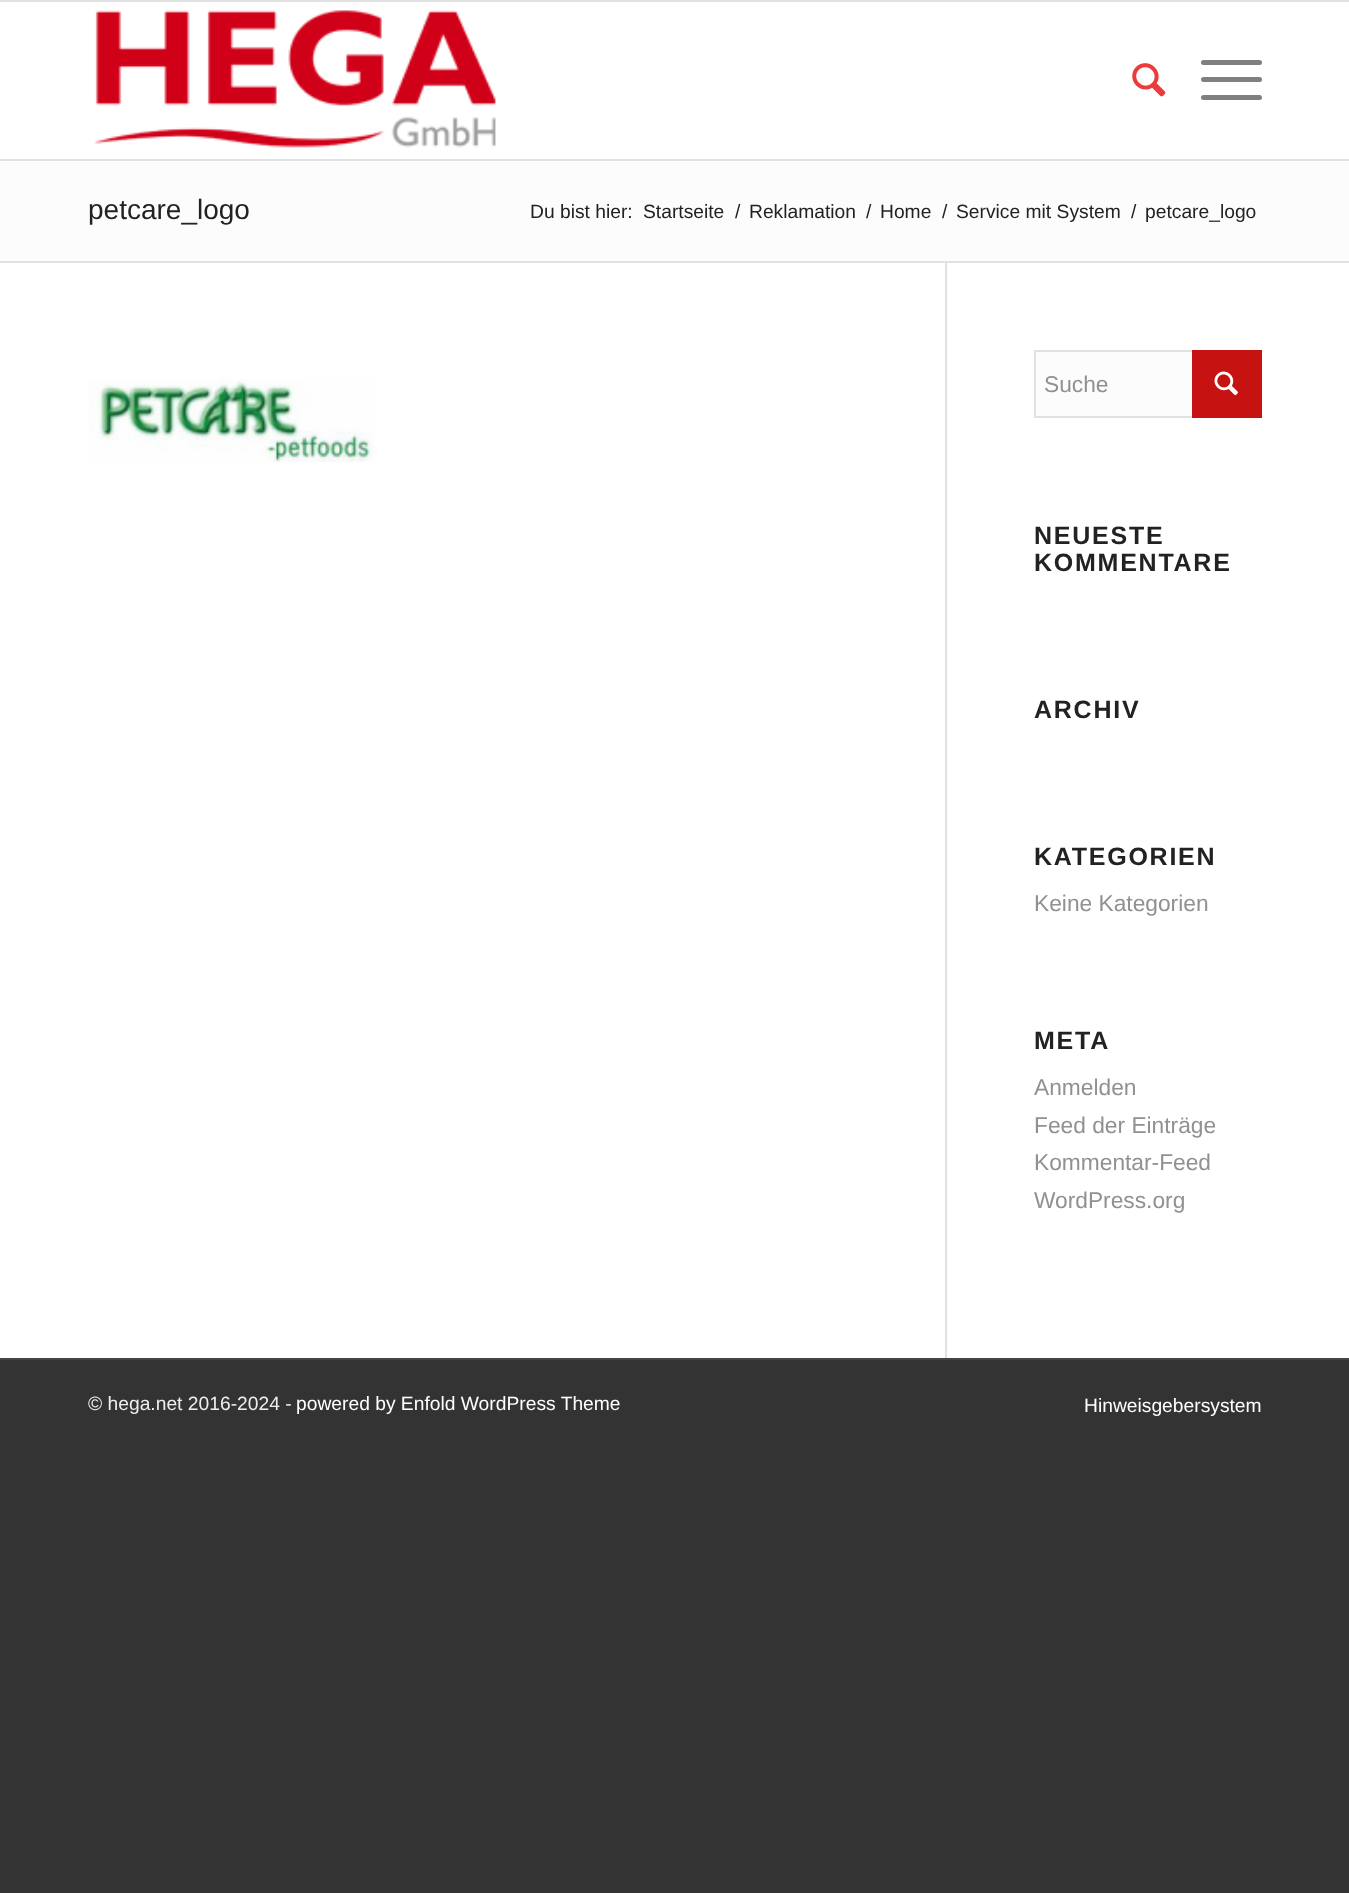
(async () => {
    const canvas = document.querySelector("canvas");
    canvas.width = 1349;
    canvas.height = 1893;
    const context = canvas.getContext("2d");
    context.miterLimit = 4;
    context.fontKerning = "normal";
    function write(s, x, y, font, color) {
        context.font = font;
        context.fillStyle = color;
        context.fillText(s, x, y);
    }
    function block(x, y, w, h, color) {
        context.fillStyle = color;
        context.fillRect(x, y, w, h);
    }
    function card(x, y, w, h, r, color) {
        context.fillStyle = color;
        context.beginPath();
        context.roundRect(x, y, w, h, r);
        context.fill();
    }
    async function photo(src, x, y, w, h) {
        const img = new Image();
        img.src = src;
        await img.decode();
        context.drawImage(img, x, y, w, h);
    }

    block(0, 0, 1349, 1893, "rgb(51, 51, 51)");
    block(0, 0, 1349, 2, "rgb(225, 225, 225)");
    block(0, 159, 1349, 2, "rgb(225, 225, 225)");
    block(0, 2, 1349, 157, "rgb(255, 255, 255)");
    await photo("media/1.png", 94, 10, 402, 138);
    await photo("media/2.png", 1132, 63, 34, 34);
    card(1201, 77, 61, 5, 2.5, "rgb(128, 128, 128)");
    card(1201, 60, 61, 5, 2.5, "rgb(128, 128, 128)");
    card(1201, 95, 61, 5, 2.5, "rgb(128, 128, 128)");
    block(0, 263, 1349, 1095, "rgb(255, 255, 255)");
    block(0, 161, 1349, 100, "rgb(252, 252, 252)");
    write("petcare_logo", 88, 219, "28px Liberation Sans", "rgb(34, 34, 34)");
    write("Du bist hier:", 530, 218, "19.25px Liberation Sans", "rgb(34, 34, 34)");
    write("Startseite", 643, 218, "19.25px Liberation Sans", "rgb(34, 34, 34)");
    write("/", 735, 218, "19.25px Liberation Sans", "rgb(34, 34, 34)");
    write("Reklamation", 749, 218, "19.25px Liberation Sans", "rgb(34, 34, 34)");
    write("/", 866, 218, "19.25px Liberation Sans", "rgb(34, 34, 34)");
    write("Home", 880, 218, "19.25px Liberation Sans", "rgb(34, 34, 34)");
    write("/", 942, 218, "19.25px Liberation Sans", "rgb(34, 34, 34)");
    write("Service mit System", 956, 218, "19.25px Liberation Sans", "rgb(34, 34, 34)");
    write("/", 1131, 218, "19.25px Liberation Sans", "rgb(34, 34, 34)");
    write("petcare_logo", 1145, 218, "19.25px Liberation Sans", "rgb(34, 34, 34)");
    block(0, 261, 1349, 2, "rgb(225, 225, 225)");
    await photo("media/3.png", 87, 379, 290, 83);
    block(945, 263, 2, 1097, "rgb(225, 225, 225)");
    block(1036, 352, 156, 64, "rgb(252, 252, 252)");
    context.strokeStyle = "rgb(225, 225, 225)";
    context.lineWidth = 2;
    context.strokeRect(1035, 351, 226, 66);
    write("Suche", 1044, 392, "22.75px Liberation Sans", "rgb(145, 145, 145)");
    block(1192, 350, 70, 68, "rgb(199, 18, 18)");
    await photo("media/4.png", 1214, 371, 24, 25);
    context.letterSpacing = "1.75px";
    write("NEUESTE", 1034, 544, "bold 25px Liberation Sans", "rgb(34, 34, 34)");
    write("KOMMENTARE", 1034, 571, "bold 25px Liberation Sans", "rgb(34, 34, 34)");
    write("ARCHIV", 1034, 718, "bold 25px Liberation Sans", "rgb(34, 34, 34)");
    write("KATEGORIEN", 1034, 865, "bold 25px Liberation Sans", "rgb(34, 34, 34)");
    context.letterSpacing = "0px";
    write("Keine Kategorien", 1034, 911, "22.75px Liberation Sans", "rgb(145, 145, 145)");
    context.letterSpacing = "1.75px";
    write("META", 1034, 1049, "bold 25px Liberation Sans", "rgb(34, 34, 34)");
    context.letterSpacing = "0px";
    write("Anmelden", 1034, 1095, "22.75px Liberation Sans", "rgb(145, 145, 145)");
    write("Feed der Einträge", 1034, 1133, "22.75px Liberation Sans", "rgb(145, 145, 145)");
    write("Kommentar-Feed", 1034, 1170, "22.75px Liberation Sans", "rgb(145, 145, 145)");
    write("WordPress.org", 1034, 1208, "22.75px Liberation Sans", "rgb(145, 145, 145)");
    block(0, 1358, 1349, 2, "rgb(68, 68, 68)");
    write("© hega.net 2016-2024 -", 88, 1410, "19.25px Liberation Sans", "rgb(238, 238, 238)");
    write("powered by Enfold WordPress Theme", 296, 1410, "19.25px Liberation Sans", "rgb(255, 255, 255)");
    write("Hinweisgebersystem", 1084, 1412, "19.25px Liberation Sans", "rgb(255, 255, 255)");
})();
